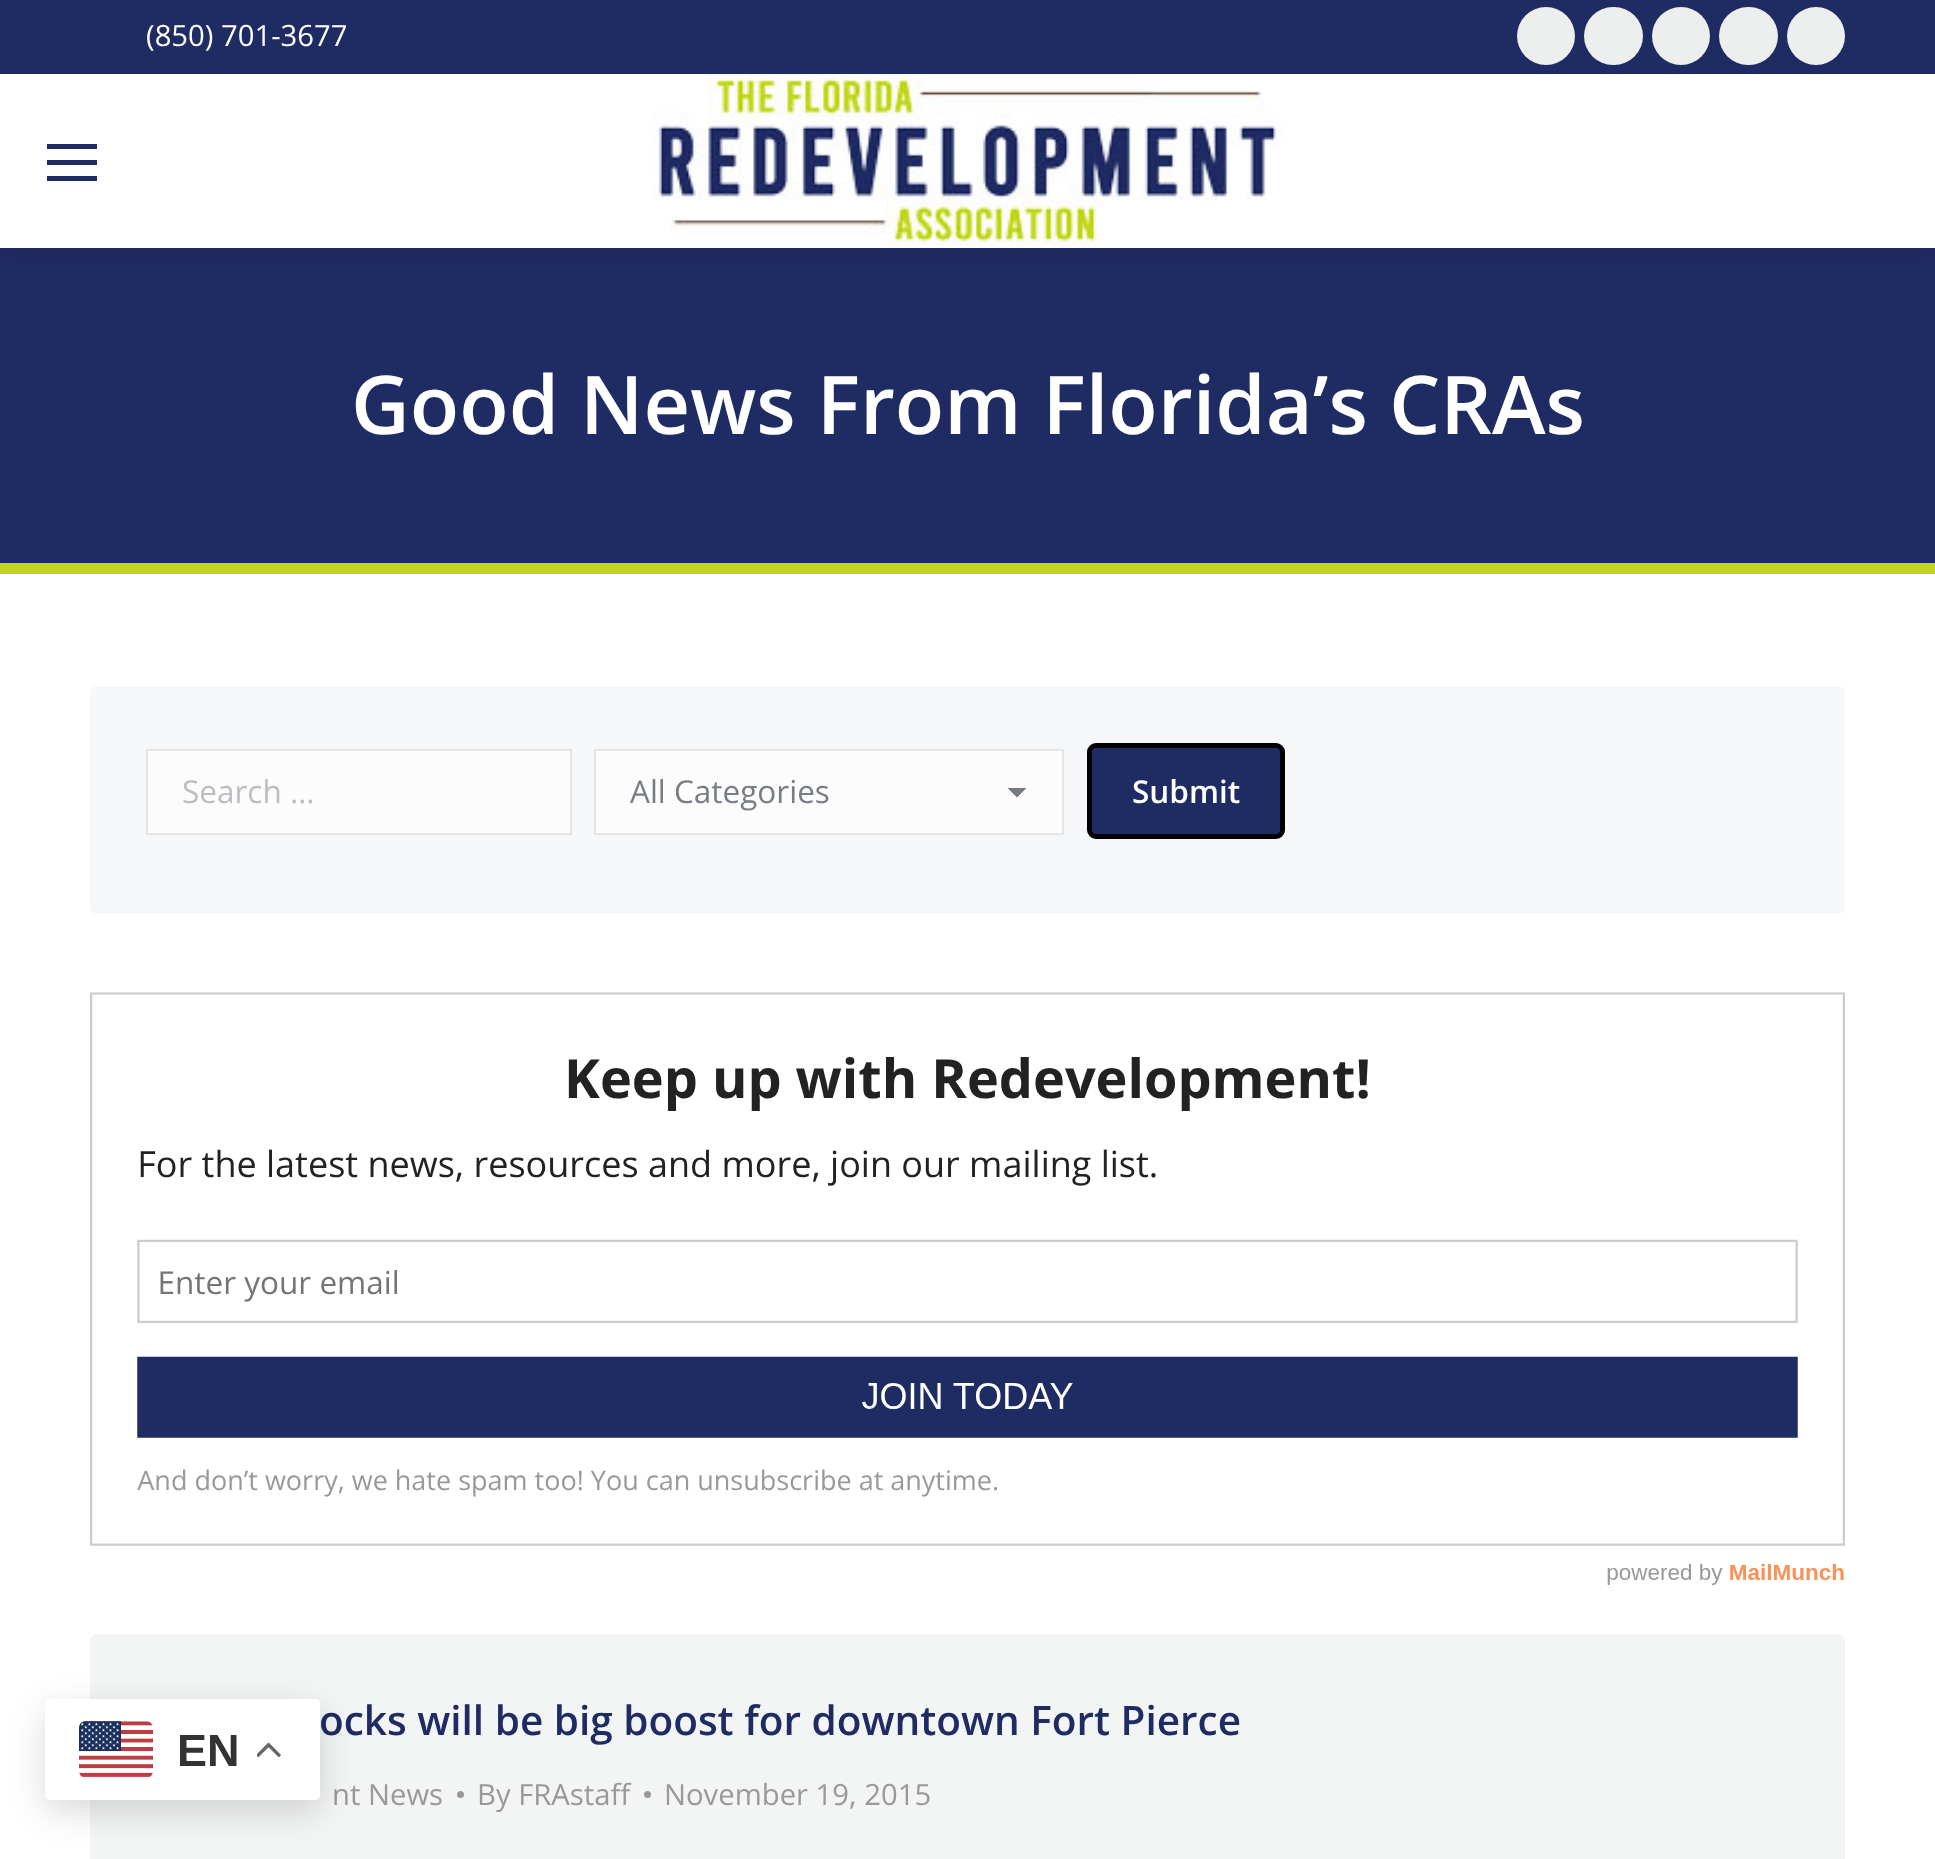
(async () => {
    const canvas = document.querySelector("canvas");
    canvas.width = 1935;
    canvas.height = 1859;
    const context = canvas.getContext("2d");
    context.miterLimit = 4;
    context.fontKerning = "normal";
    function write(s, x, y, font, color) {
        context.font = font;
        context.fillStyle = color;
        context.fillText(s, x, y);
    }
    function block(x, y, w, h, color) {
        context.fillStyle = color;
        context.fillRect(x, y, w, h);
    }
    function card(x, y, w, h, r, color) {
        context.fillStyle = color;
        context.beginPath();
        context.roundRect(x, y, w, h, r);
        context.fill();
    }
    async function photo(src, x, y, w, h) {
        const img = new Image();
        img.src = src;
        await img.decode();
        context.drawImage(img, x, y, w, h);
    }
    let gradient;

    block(0, 0, 1935, 1859, "rgb(255, 255, 255)");
    block(0, 248, 1935, 315, "rgb(31, 43, 99)");
    context.fillStyle = "rgba(0, 0, 0, 0.07)";
    context.filter = "blur(17px)";
    context.beginPath();
    context.rect(-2, -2, 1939, 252);
    context.fill();
    context.filter = "none";
    block(0, 74, 1935, 174, "rgb(255, 255, 255)");
    block(0, 0, 1935, 74, "rgb(31, 43, 99)");
    write("(850) 701-3677", 146, 46, "29.25px Open Sans", "rgb(255, 255, 255)");
    context.fillStyle = "rgb(237, 238, 238)";
    context.beginPath();
    context.arc(1546, 36, 29, 0, Math.PI * 2);
    context.fill();
    card(1584, 7, 59, 58, 29, "rgb(237, 238, 238)");
    context.beginPath();
    context.arc(1681, 36, 29, 0, Math.PI * 2);
    context.fill();
    card(1719, 7, 59, 58, 29, "rgb(237, 238, 238)");
    context.beginPath();
    context.arc(1816, 36, 29, 0, Math.PI * 2);
    context.fill();
    block(47, 144, 50, 5, "rgb(31, 43, 99)");
    block(47, 160, 50, 5, "rgb(31, 43, 99)");
    block(47, 176, 50, 5, "rgb(31, 43, 99)");
    await photo("media/1.png", 652, 74, 630, 174);
    block(0, 563, 1935, 11, "rgb(194, 214, 25)");
    write("Good News From Florida’s CRAs", 351, 434, "600 81px Open Sans", "rgb(255, 255, 255)");
    card(90, 686, 1755, 228, 7, "rgb(246, 247, 248)");
    context.fillStyle = "rgb(252, 252, 252)";
    context.beginPath();
    context.rect(147, 750, 424, 84);
    context.fill();
    context.strokeStyle = "rgb(228, 229, 231)";
    context.lineWidth = 2;
    context.stroke();
    write("Search …", 182, 803, "31.5px Open Sans", "rgb(186, 189, 193)");
    block(596, 751, 466, 82, "rgb(252, 252, 252)");
    gradient = context.createLinearGradient(1017, 786, 1028, 798);
    gradient.addColorStop(0.5, "rgb(120, 125, 133)");
    gradient.addColorStop(0.5, "rgb(252, 252, 252)");
    context.fillStyle = gradient;
    context.fillRect(1017, 788, 9, 9);
    gradient = context.createLinearGradient(1006, 798, 1017, 786);
    gradient.addColorStop(0.5, "rgb(252, 252, 252)");
    gradient.addColorStop(0.5, "rgb(120, 125, 133)");
    context.fillStyle = gradient;
    context.fillRect(1008, 788, 9, 9);
    context.strokeRect(595, 750, 468, 84);
    write("All Categories", 630, 803, "31.5px Open Sans", "rgb(120, 125, 133)");
    context.fillStyle = "rgb(31, 43, 99)";
    context.beginPath();
    context.roundRect(1089.5, 745.5, 193, 91, 6.5);
    context.fill();
    context.strokeStyle = "rgb(0, 0, 0)";
    context.lineWidth = 5;
    context.stroke();
    write("Submit", 1132, 803, "600 31.5px Open Sans", "rgb(255, 255, 255)");
    await photo("media/2.png", 90, 992, 1755, 593);
    card(90, 1634, 1755, 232, 7, "rgb(243, 244, 244)");
    write("ocks will be big boost for downtown Fort Pierce", 319, 1735, "600 40.5px Open Sans", "rgb(31, 43, 99)");
    write("nt News", 332, 1805, "29.25px Open Sans", "rgb(153, 153, 153)");
    context.beginPath();
    context.arc(460.5, 1794.5, 3.5, 0, Math.PI * 2);
    context.fill();
    write("By FRAstaff", 477, 1805, "29.25px Open Sans", "rgb(153, 153, 153)");
    context.beginPath();
    context.arc(647.5, 1794.5, 3.5, 0, Math.PI * 2);
    context.fill();
    write("November 19, 2015", 664, 1805, "29.25px Open Sans", "rgb(153, 153, 153)");
    context.fillStyle = "rgba(0, 0, 0, 0.15)";
    context.filter = "blur(17px)";
    context.beginPath();
    context.roundRect(45, 1710, 275, 101, 5);
    context.fill();
    context.filter = "none";
    card(45, 1699, 275, 101, 5, "rgb(255, 255, 255)");
    await photo("media/3.png", 79, 1721, 74, 56);
    write("EN", 177, 1766, "bold 45px Liberation Sans", "rgb(51, 51, 51)");
    await photo("media/4.png", 257, 1742, 24, 16);
})();
